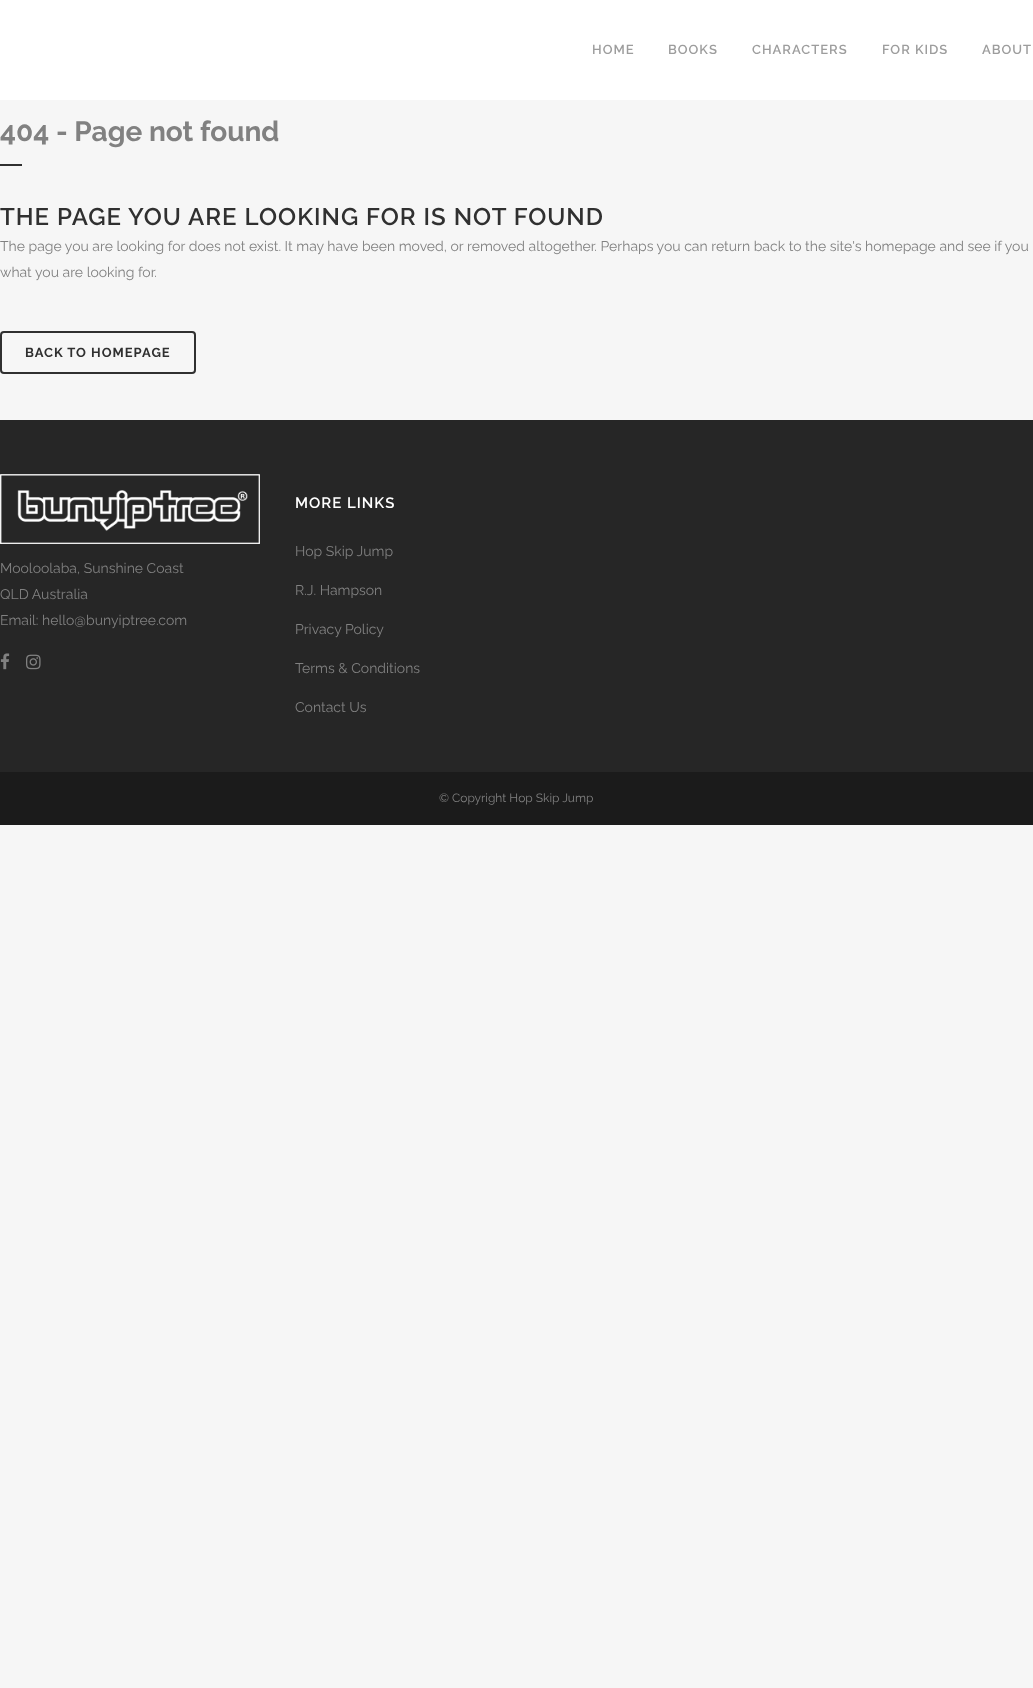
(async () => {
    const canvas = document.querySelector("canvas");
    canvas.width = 1033;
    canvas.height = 1688;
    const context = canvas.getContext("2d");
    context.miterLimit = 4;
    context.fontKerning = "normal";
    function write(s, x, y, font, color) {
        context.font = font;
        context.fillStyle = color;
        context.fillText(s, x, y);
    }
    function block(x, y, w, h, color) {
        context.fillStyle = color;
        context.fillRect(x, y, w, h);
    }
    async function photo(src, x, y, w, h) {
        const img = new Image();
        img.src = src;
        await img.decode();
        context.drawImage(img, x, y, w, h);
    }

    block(0, 0, 1033, 1688, "rgb(246, 246, 246)");
    block(0, 0, 1033, 100, "rgb(255, 255, 255)");
    context.letterSpacing = "1px";
    write("HOME", 592, 54, "600 13px Raleway", "rgb(157, 157, 157)");
    write("BOOKS", 668, 54, "600 13px Raleway", "rgb(157, 157, 157)");
    write("CHARACTERS", 752, 54, "600 13px Raleway", "rgb(157, 157, 157)");
    write("FOR KIDS", 882, 54, "600 13px Raleway", "rgb(157, 157, 157)");
    write("ABOUT", 982, 54, "600 13px Raleway", "rgb(157, 157, 157)");
    context.letterSpacing = "0px";
    write("404 - Page not found", 0, 141, "bold 28px Raleway", "rgb(129, 129, 129)");
    block(0, 164, 22, 2, "rgb(48, 48, 48)");
    context.letterSpacing = "1px";
    write("THE PAGE YOU ARE LOOKING FOR IS NOT FOUND", 0, 225, "600 24px Raleway", "rgb(48, 48, 48)");
    context.letterSpacing = "0px";
    write("The page you are looking for does not exist. It may have been moved, or removed altogether. Perhaps you can return back to the site's homepage and see if you", 0, 251, "14px Raleway", "rgb(129, 129, 129)");
    write("what you are looking for.", 0, 277, "14px Raleway", "rgb(129, 129, 129)");
    context.beginPath();
    context.roundRect(1, 332, 194, 41, 3);
    context.strokeStyle = "rgb(48, 48, 48)";
    context.lineWidth = 2;
    context.stroke();
    context.letterSpacing = "1px";
    write("BACK TO HOMEPAGE", 25, 357, "bold 13px Raleway", "rgb(48, 48, 48)");
    block(0, 420, 1033, 352, "rgb(38, 38, 38)");
    await photo("media/1.png", 0, 474, 260, 70);
    context.letterSpacing = "0px";
    write("Mooloolaba, Sunshine Coast", 0, 573, "14px Raleway", "rgb(129, 129, 129)");
    write("QLD Australia", 0, 599, "14px Raleway", "rgb(129, 129, 129)");
    write("Email: hello@bunyiptree.com", 0, 625, "14px Raleway", "rgb(129, 129, 129)");
    await photo("media/2.png", 0, 653, 10, 17);
    await photo("media/3.png", 26, 654, 15, 16);
    context.letterSpacing = "1px";
    write("MORE LINKS", 295, 508, "600 15px Raleway", "rgb(255, 255, 255)");
    context.letterSpacing = "0px";
    write("Hop Skip Jump", 295, 556, "14px Raleway", "rgb(129, 129, 129)");
    write("R.J. Hampson", 295, 595, "14px Raleway", "rgb(129, 129, 129)");
    write("Privacy Policy", 295, 634, "14px Raleway", "rgb(129, 129, 129)");
    write("Terms & Conditions", 295, 673, "14px Raleway", "rgb(129, 129, 129)");
    write("Contact Us", 295, 712, "14px Raleway", "rgb(129, 129, 129)");
    block(0, 772, 1033, 53, "rgb(27, 27, 27)");
    write("© Copyright Hop Skip Jump", 439, 802, "12px Raleway", "rgb(129, 129, 129)");
})();
